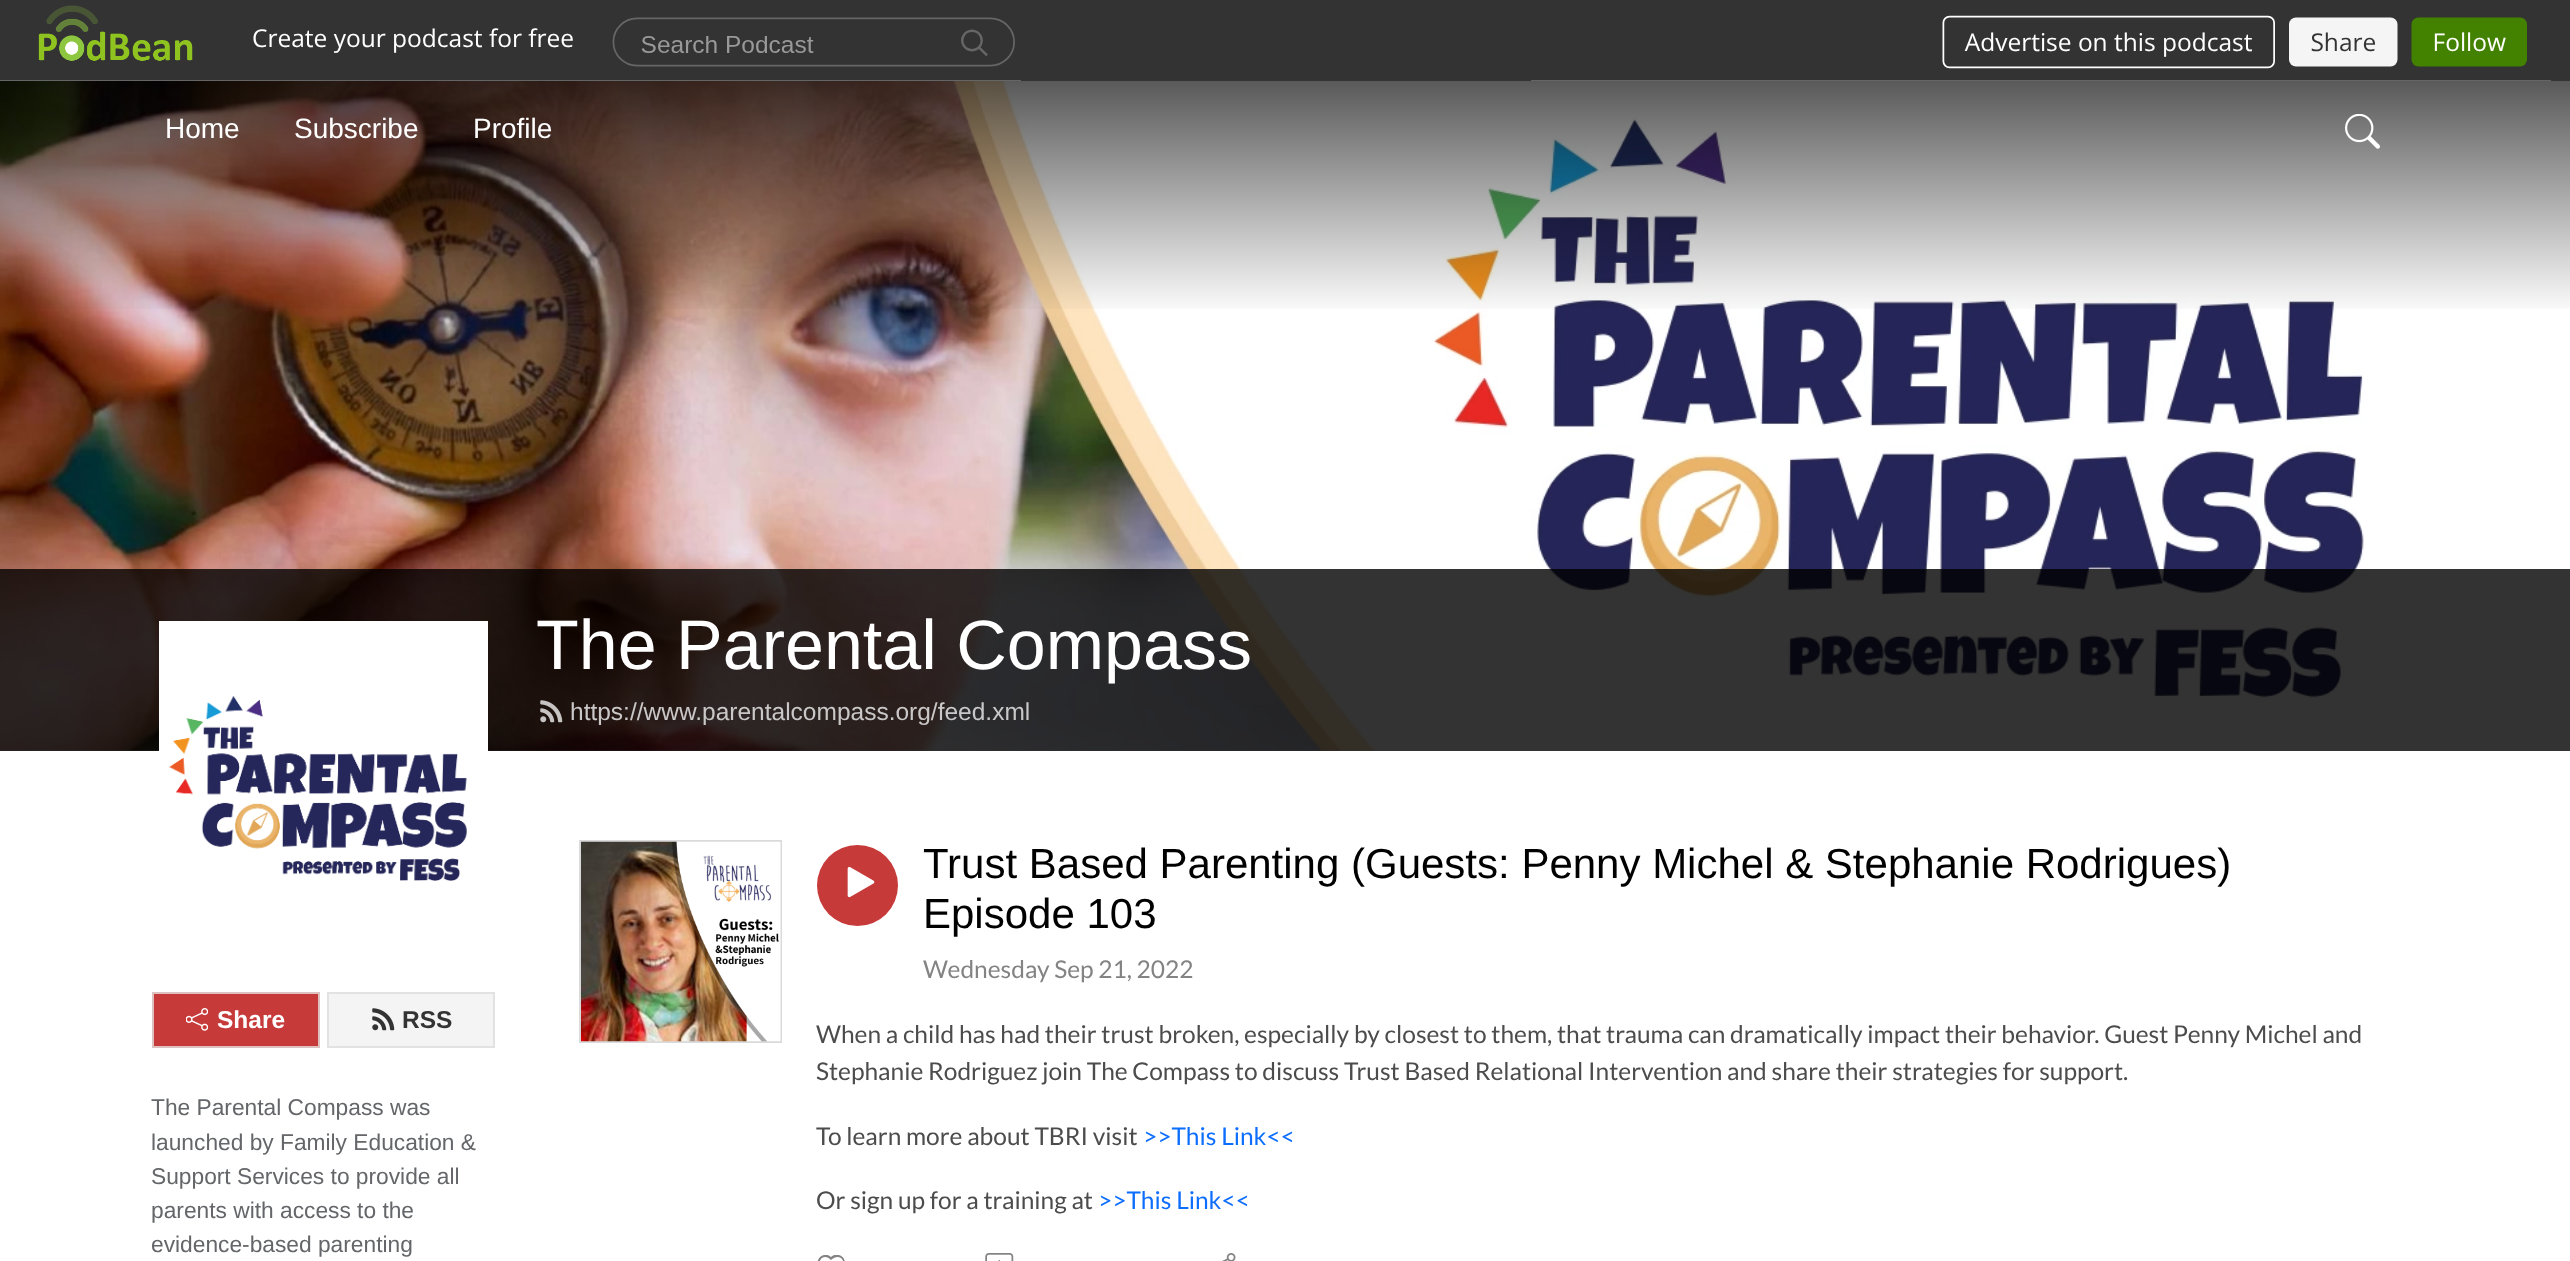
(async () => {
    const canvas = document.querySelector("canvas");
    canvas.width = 2570;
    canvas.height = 1261;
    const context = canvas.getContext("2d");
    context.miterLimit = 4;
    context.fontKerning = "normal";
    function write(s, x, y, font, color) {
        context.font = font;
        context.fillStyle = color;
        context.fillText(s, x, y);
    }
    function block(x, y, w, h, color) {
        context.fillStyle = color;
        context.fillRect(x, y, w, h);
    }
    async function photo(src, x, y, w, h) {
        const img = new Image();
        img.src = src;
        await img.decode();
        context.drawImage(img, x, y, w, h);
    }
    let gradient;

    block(0, 0, 2570, 1261, "rgb(255, 255, 255)");
    block(0, 0, 2570, 81, "rgb(51, 51, 51)");
    await photo("media/1.png", 0, 5, 2551, 76);
    await photo("media/3.png", 0, 81, 2364, 670);
    gradient = context.createLinearGradient(1285, 317, 1285, 81);
    gradient.addColorStop(0, "rgba(0, 0, 0, 0)");
    gradient.addColorStop(1, "rgba(0, 0, 0, 0.65)");
    context.fillStyle = gradient;
    context.fillRect(0, 81, 2570, 228);
    write("Home", 165, 138, "28px Liberation Sans", "rgb(255, 255, 255)");
    write("Subscribe", 294, 138, "28px Liberation Sans", "rgb(255, 255, 255)");
    write("Profile", 473, 138, "28px Liberation Sans", "rgb(255, 255, 255)");
    await photo("media/2.png", 2345, 114, 35, 35);
    block(0, 569, 2570, 182, "rgba(0, 0, 0, 0.8)");
    write("The Parental Compass", 536, 669, "70px Liberation Sans", "rgb(255, 255, 255)");
    await photo("media/4.png", 540, 700, 23, 23);
    write("https://www.parentalcompass.org/feed.xml", 570, 720, "24.5px Liberation Sans", "rgb(201, 199, 199)");
    context.strokeStyle = "rgb(255, 255, 255)";
    context.lineWidth = 4;
    context.strokeRect(161, 623, 325, 325);
    await photo("media/5.png", 163, 625, 321, 256);
    context.fillStyle = "rgb(199, 58, 58)";
    context.beginPath();
    context.rect(153, 993, 166, 54);
    context.fill();
    context.strokeStyle = "rgb(221, 192, 192)";
    context.lineWidth = 2;
    context.stroke();
    await photo("media/6.png", 186, 1008, 22, 23);
    write("Share", 217, 1028, "bold 24.5px Liberation Sans", "rgb(255, 255, 255)");
    context.fillStyle = "rgb(244, 244, 244)";
    context.beginPath();
    context.rect(328, 993, 166, 54);
    context.fill();
    context.strokeStyle = "rgb(226, 226, 226)";
    context.stroke();
    await photo("media/7.png", 372, 1008, 23, 23);
    write("RSS", 402, 1028, "bold 24.5px Liberation Sans", "rgb(51, 51, 51)");
    write("The Parental Compass was", 151, 1115, "22.75px Liberation Sans", "rgb(100, 102, 105)");
    write("launched by Family Education &", 151, 1150, "22.75px Liberation Sans", "rgb(100, 102, 105)");
    write("Support Services to provide all", 151, 1184, "22.75px Liberation Sans", "rgb(100, 102, 105)");
    write("parents with access to the", 151, 1218, "22.75px Liberation Sans", "rgb(100, 102, 105)");
    write("evidence-based parenting", 151, 1252, "22.75px Liberation Sans", "rgb(100, 102, 105)");
    context.strokeStyle = "rgb(218, 218, 218)";
    context.strokeRect(580, 841, 201, 201);
    await photo("media/8.png", 581, 841, 200, 201);
    context.fillStyle = "rgb(199, 58, 58)";
    context.beginPath();
    context.arc(857.5, 885.5, 40.5, 0, Math.PI * 2);
    context.fill();
    await photo("media/9.png", 847, 866, 28, 32);
    write("Trust Based Parenting (Guests: Penny Michel & Stephanie Rodrigues)", 923, 878, "42px Liberation Sans", "rgb(0, 0, 0)");
    write("Episode 103", 923, 928, "42px Liberation Sans", "rgb(0, 0, 0)");
    write("Wednesday Sep 21, 2022", 923, 978, "24.5px Lato", "rgb(131, 131, 131)");
    write("When a child has had their trust broken, especially by closest to them, that trauma can dramatically impact their behavior. Guest Penny Michel and", 816, 1043, "24.5px Lato", "rgb(76, 76, 76)");
    write("Stephanie Rodriguez join The Compass to discuss Trust Based Relational Intervention and share their strategies for support.", 816, 1080, "24.5px Lato", "rgb(76, 76, 76)");
    write("To learn more about TBRI visit", 816, 1145, "24.5px Lato", "rgb(76, 76, 76)");
    write(">>This Link<<", 1143, 1145, "24.5px Lato", "rgb(13, 110, 253)");
    write("Or sign up for a training at", 816, 1209, "24.5px Lato", "rgb(76, 76, 76)");
    write(">>This Link<<", 1098, 1209, "24.5px Lato", "rgb(13, 110, 253)");
    context.save();
    context.beginPath();
    context.rect(814, 1255, 35, 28);
    context.clip();
    context.fillStyle = "rgb(131, 131, 131)";
    context.beginPath();
    context.moveTo(831, 1260);
    context.bezierCurveTo(825, 1253, 817, 1259, 820, 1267);
    context.bezierCurveTo(822, 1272, 827, 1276, 831, 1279);
    context.bezierCurveTo(836, 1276, 841, 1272, 843, 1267);
    context.bezierCurveTo(846, 1259, 838, 1253, 831, 1260);
    context.closePath();
    context.moveTo(831, 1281);
    context.bezierCurveTo(805, 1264, 823, 1249, 831, 1257);
    context.bezierCurveTo(839, 1249, 858, 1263, 831, 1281);
    context.closePath();
    context.fill();
    context.restore();
    await photo("media/10.png", 985, 1253, 29, 8);
    await photo("media/11.png", 1222, 1253, 14, 8);
})();
